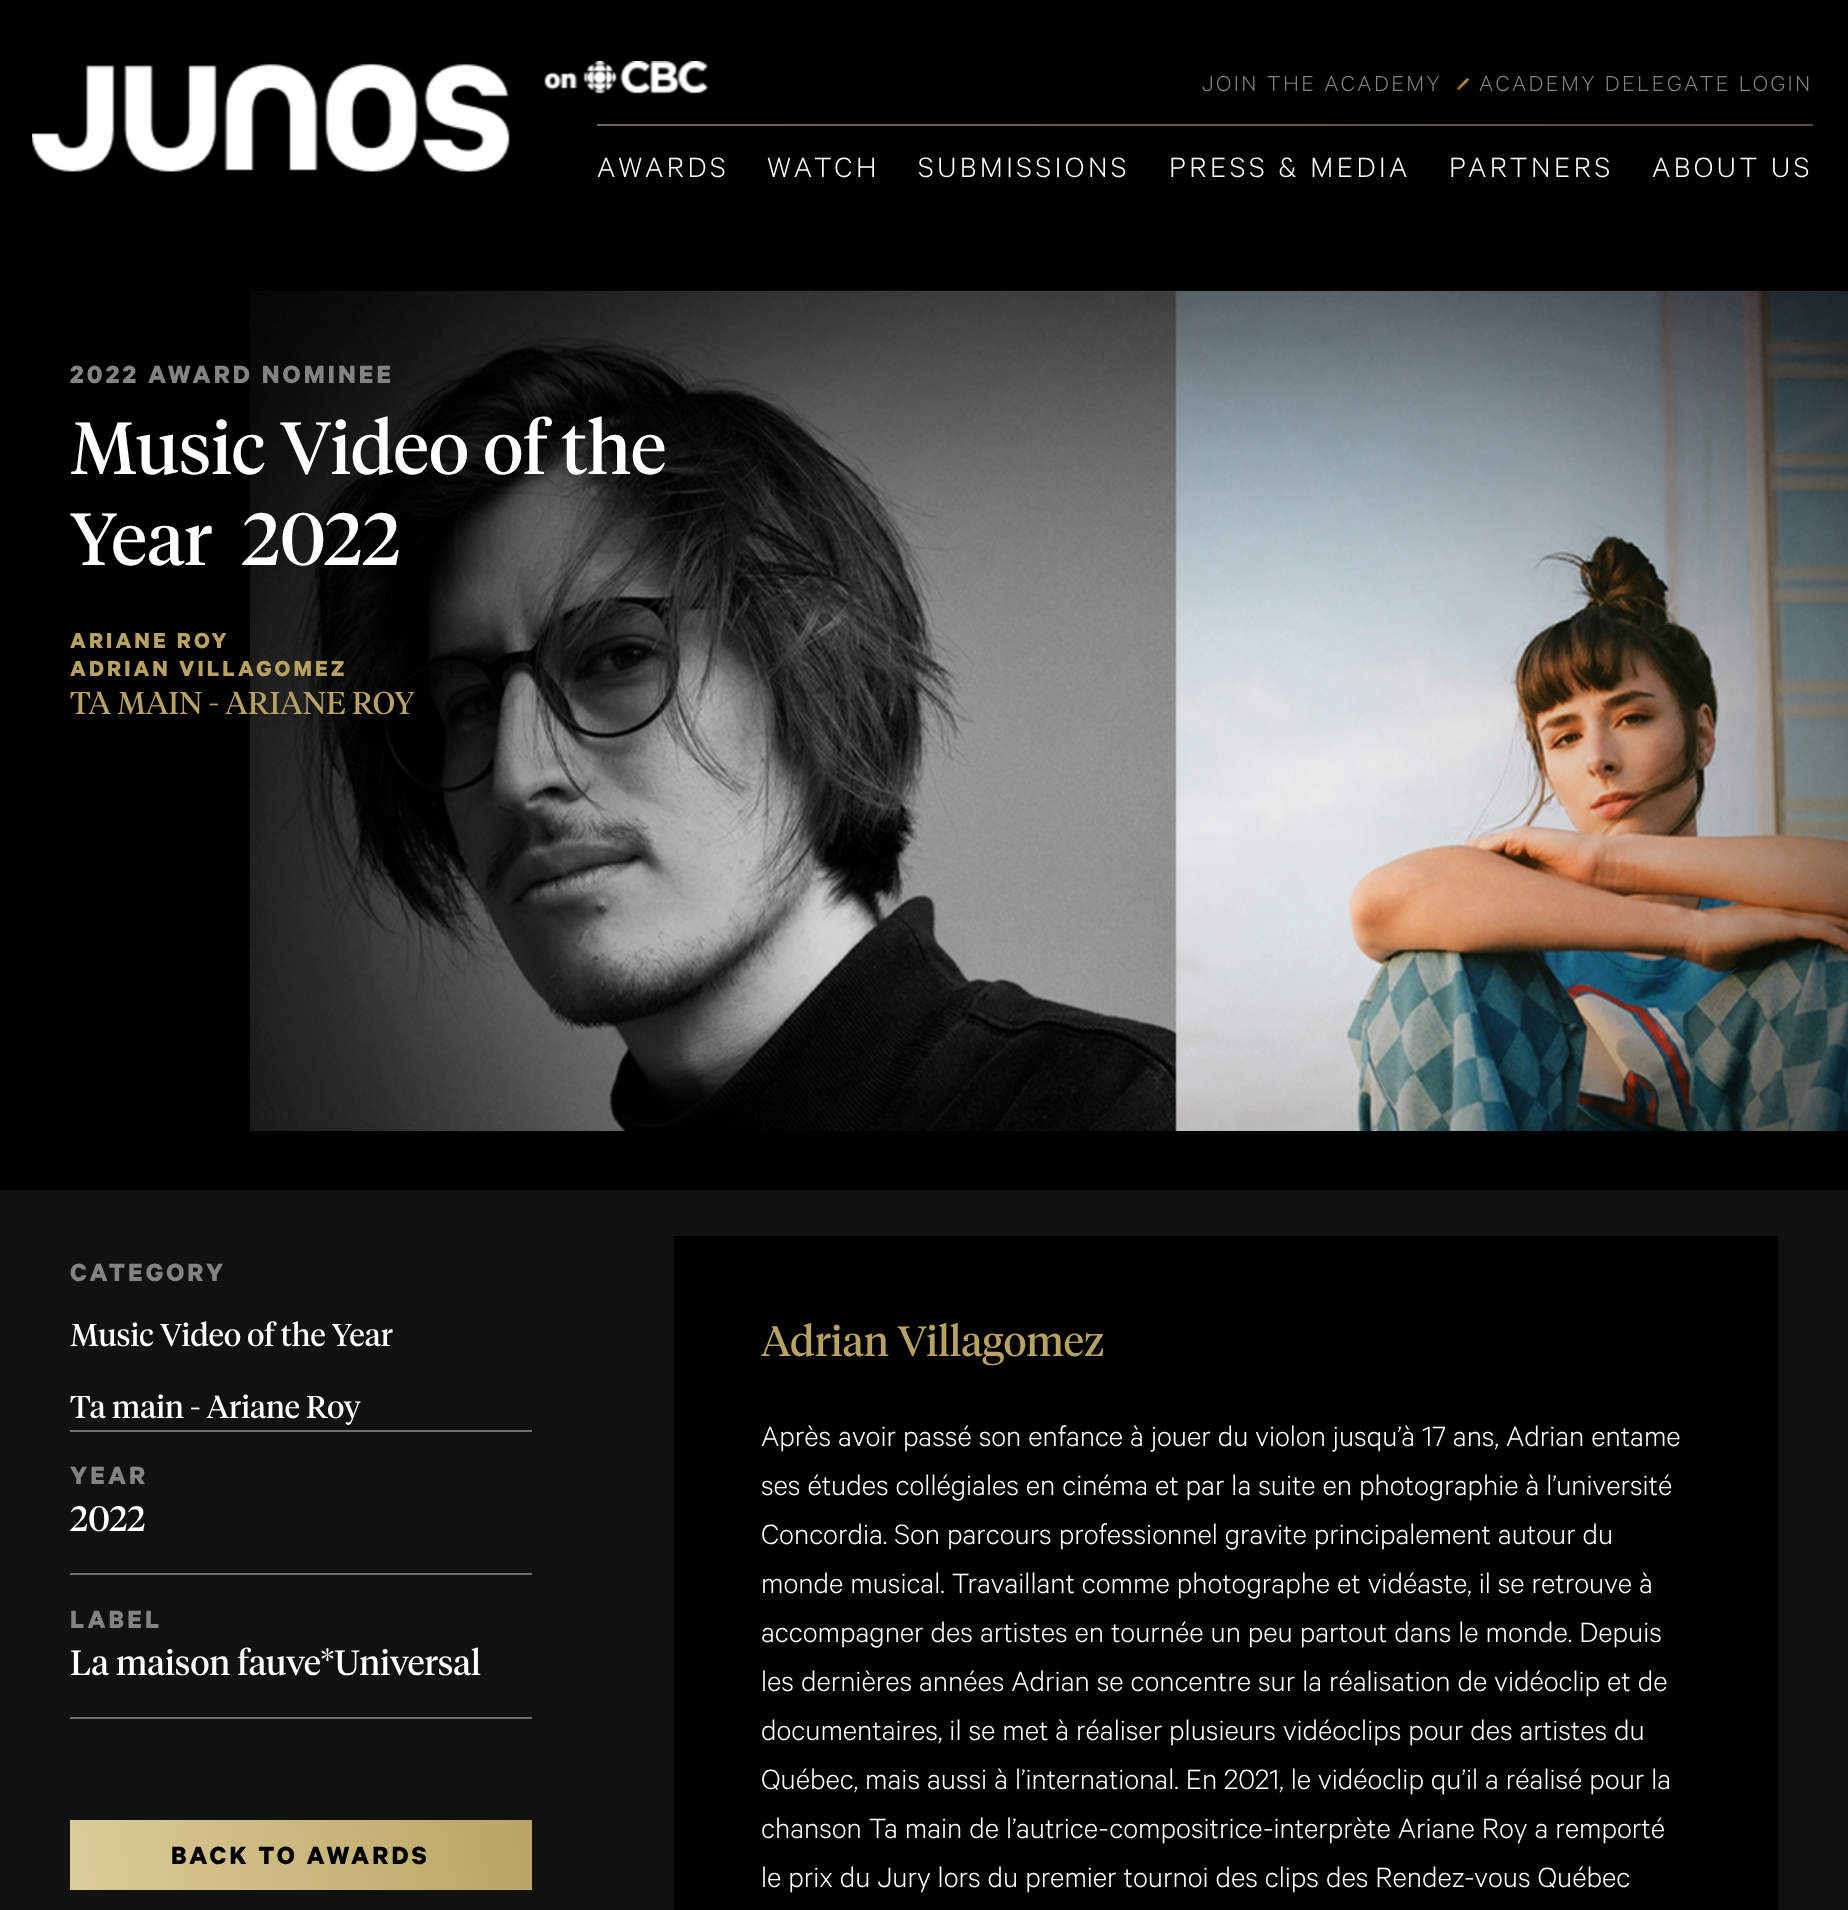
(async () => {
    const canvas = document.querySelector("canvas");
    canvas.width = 1848;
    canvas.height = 1910;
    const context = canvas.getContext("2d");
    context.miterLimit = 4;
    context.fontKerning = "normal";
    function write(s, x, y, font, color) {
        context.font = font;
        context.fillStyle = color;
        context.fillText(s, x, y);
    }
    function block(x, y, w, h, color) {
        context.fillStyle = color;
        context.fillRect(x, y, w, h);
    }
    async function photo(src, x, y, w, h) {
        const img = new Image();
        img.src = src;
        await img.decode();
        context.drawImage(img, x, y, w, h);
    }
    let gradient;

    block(0, 0, 1848, 1910, "rgb(17, 17, 17)");
    block(0, 0, 1848, 1190, "rgb(0, 0, 0)");
    gradient = context.createLinearGradient(597, 125, 1813, 125);
    gradient.addColorStop(0, "rgb(110, 104, 77)");
    gradient.addColorStop(1, "rgb(92, 81, 49)");
    context.fillStyle = gradient;
    context.fillRect(597, 124, 1216, 2);
    await photo("media/1.png", 32, 61, 677, 111);
    context.letterSpacing = "2.45px";
    write("JOIN THE ACADEMY", 1202, 91, "300 24.5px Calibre", "rgb(131, 131, 131)");
    await photo("media/2.png", 1456, 77, 14, 14);
    write("ACADEMY DELEGATE LOGIN", 1479, 91, "300 24.5px Calibre", "rgb(131, 131, 131)");
    context.letterSpacing = "3.5px";
    write("AWARDS", 597, 177, "300 31.5px Calibre", "rgb(255, 255, 255)");
    write("WATCH", 767, 177, "300 31.5px Calibre", "rgb(255, 255, 255)");
    write("SUBMISSIONS", 918, 177, "300 31.5px Calibre", "rgb(255, 255, 255)");
    write("PRESS & MEDIA", 1169, 177, "300 31.5px Calibre", "rgb(255, 255, 255)");
    write("PARTNERS", 1449, 177, "300 31.5px Calibre", "rgb(255, 255, 255)");
    write("ABOUT US", 1652, 177, "300 31.5px Calibre", "rgb(255, 255, 255)");
    await photo("media/3.png", 250, 291, 1598, 840);
    await photo("media/4.png", 250, 291, 1598, 840);
    context.letterSpacing = "3.1px";
    write("2022 AWARD NOMINEE", 70, 383, "bold 28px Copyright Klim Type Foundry", "rgb(131, 131, 131)");
    context.letterSpacing = "0px";
    write("Music Video of the", 70, 474, "73.5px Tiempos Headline", "rgb(255, 255, 255)");
    write("Year  2022", 70, 565, "73.5px Tiempos Headline", "rgb(255, 255, 255)");
    context.letterSpacing = "3.1px";
    write("ARIANE ROY", 70, 648, "bold 24.5px Copyright Klim Type Foundry", "rgb(183, 162, 97)");
    write("ADRIAN VILLAGOMEZ", 70, 676, "bold 24.5px Copyright Klim Type Foundry", "rgb(183, 162, 97)");
    context.letterSpacing = "0px";
    write("TA MAIN - ARIANE ROY", 70, 714, "31.5px Tiempos Headline", "rgb(183, 162, 97)");
    context.letterSpacing = "3.1px";
    write("CATEGORY", 70, 1281, "bold 28px Copyright Klim Type Foundry", "rgb(131, 131, 131)");
    context.letterSpacing = "0px";
    write("Music Video of the Year", 70, 1346, "31.5px Tiempos Headline", "rgb(255, 255, 255)");
    write("Ta main - Ariane Roy", 70, 1418, "31.5px Tiempos Headline", "rgb(255, 255, 255)");
    block(70, 1430, 462, 2, "rgb(112, 112, 112)");
    block(70, 1573, 462, 2, "rgb(112, 112, 112)");
    context.letterSpacing = "3.1px";
    write("YEAR", 70, 1484, "bold 28px Copyright Klim Type Foundry", "rgb(131, 131, 131)");
    context.letterSpacing = "0px";
    write("2022", 70, 1531, "35px Tiempos Headline", "rgb(255, 255, 255)");
    block(70, 1717, 462, 2, "rgb(112, 112, 112)");
    context.letterSpacing = "3.1px";
    write("LABEL", 70, 1628, "bold 28px Copyright Klim Type Foundry", "rgb(131, 131, 131)");
    context.letterSpacing = "0px";
    write("La maison fauve*Universal", 70, 1675, "35px Tiempos Headline", "rgb(255, 255, 255)");
    gradient = context.createLinearGradient(72, 1900, 530, 1810);
    gradient.addColorStop(0, "rgb(219, 205, 152)");
    gradient.addColorStop(1, "rgb(185, 164, 100)");
    context.fillStyle = gradient;
    context.fillRect(70, 1820, 462, 70);
    context.letterSpacing = "3.1px";
    write("BACK TO AWARDS", 171, 1864, "bold 28px Copyright Klim Type Foundry", "rgb(0, 0, 0)");
    block(674, 1236, 1104, 674, "rgb(0, 0, 0)");
    context.letterSpacing = "0px";
    write("Adrian Villagomez", 761, 1356, "42px Tiempos Headline", "rgb(183, 162, 97)");
    write("Après avoir passé son enfance à jouer du violon jusqu’à 17 ans, Adrian entame", 761, 1446, "300 31.5px Calibre", "rgb(255, 255, 255)");
    write("ses études collégiales en cinéma et par la suite en photographie à l’université", 761, 1495, "300 31.5px Calibre", "rgb(255, 255, 255)");
    write("Concordia. Son parcours professionnel gravite principalement autour du", 761, 1544, "300 31.5px Calibre", "rgb(255, 255, 255)");
    write("monde musical. Travaillant comme photographe et vidéaste, il se retrouve à", 761, 1593, "300 31.5px Calibre", "rgb(255, 255, 255)");
    write("accompagner des artistes en tournée un peu partout dans le monde. Depuis", 761, 1642, "300 31.5px Calibre", "rgb(255, 255, 255)");
    write("les dernières années Adrian se concentre sur la réalisation de vidéoclip et de", 761, 1691, "300 31.5px Calibre", "rgb(255, 255, 255)");
    write("documentaires, il se met à réaliser plusieurs vidéoclips pour des artistes du", 761, 1740, "300 31.5px Calibre", "rgb(255, 255, 255)");
    write("Québec, mais aussi à l’international. En 2021, le vidéoclip qu’il a réalisé pour la", 761, 1789, "300 31.5px Calibre", "rgb(255, 255, 255)");
    write("chanson Ta main de l’autrice-compositrice-interprète Ariane Roy a remporté", 761, 1838, "300 31.5px Calibre", "rgb(255, 255, 255)");
    write("le prix du Jury lors du premier tournoi des clips des Rendez-vous Québec", 761, 1887, "300 31.5px Calibre", "rgb(255, 255, 255)");
})();
